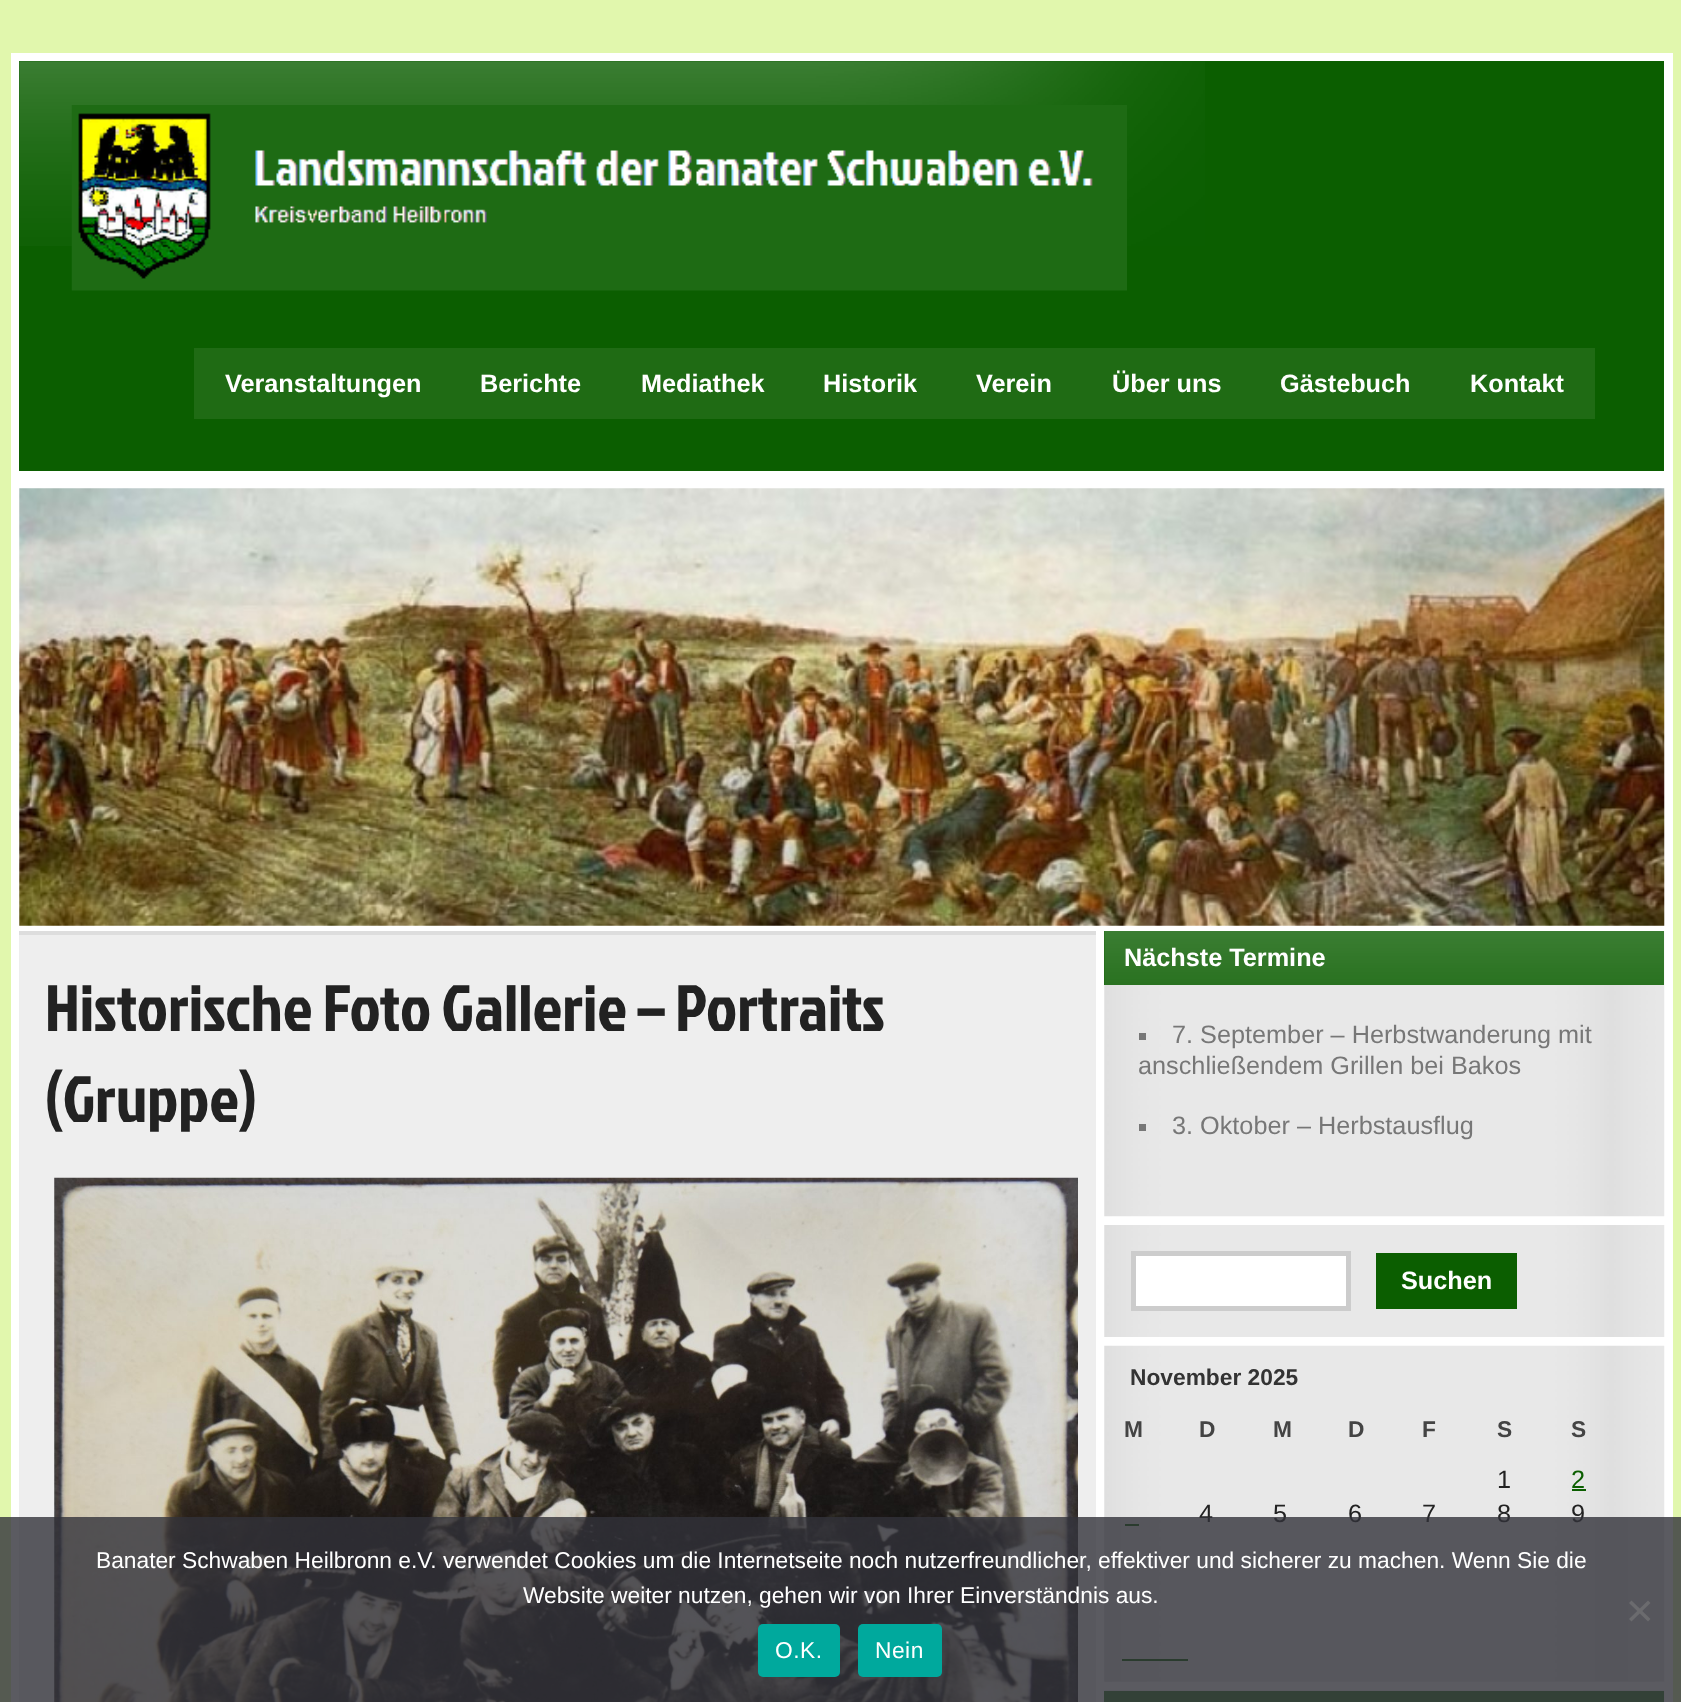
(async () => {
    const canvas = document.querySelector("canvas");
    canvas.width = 1681;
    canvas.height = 1702;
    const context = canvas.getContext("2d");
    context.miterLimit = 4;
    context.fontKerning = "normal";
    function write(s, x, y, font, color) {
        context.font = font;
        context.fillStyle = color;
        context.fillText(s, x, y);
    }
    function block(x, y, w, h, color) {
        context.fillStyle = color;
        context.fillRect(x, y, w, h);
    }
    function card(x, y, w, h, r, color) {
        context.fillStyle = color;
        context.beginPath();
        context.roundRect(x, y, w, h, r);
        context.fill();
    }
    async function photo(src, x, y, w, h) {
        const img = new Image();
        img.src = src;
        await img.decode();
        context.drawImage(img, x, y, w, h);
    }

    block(0, 0, 1681, 1702, "rgb(225, 247, 173)");
    block(11, 53, 1662, 1649, "rgb(255, 255, 255)");
    block(19, 61, 1645, 410, "rgb(11, 94, 0)");
    await photo("media/1.png", 19, 61, 1186, 185);
    await photo("media/2.png", 71, 105, 1056, 186);
    block(194, 348, 1401, 71, "rgb(31, 107, 20)");
    write("Veranstaltungen", 225, 392, "bold 25.25px Liberation Sans", "rgb(255, 255, 255)");
    write("Berichte", 480, 392, "bold 25.25px Liberation Sans", "rgb(255, 255, 255)");
    write("Mediathek", 641, 392, "bold 25.25px Liberation Sans", "rgb(255, 255, 255)");
    write("Historik", 823, 392, "bold 25.25px Liberation Sans", "rgb(255, 255, 255)");
    write("Verein", 976, 392, "bold 25.25px Liberation Sans", "rgb(255, 255, 255)");
    write("Über uns", 1112, 392, "bold 25.25px Liberation Sans", "rgb(255, 255, 255)");
    write("Gästebuch", 1280, 392, "bold 25.25px Liberation Sans", "rgb(255, 255, 255)");
    write("Kontakt", 1470, 392, "bold 25.25px Liberation Sans", "rgb(255, 255, 255)");
    await photo("media/3.png", 19, 488, 1646, 438);
    block(19, 935, 1077, 767, "rgb(238, 238, 238)");
    block(19, 931, 1077, 4, "rgb(221, 221, 221)");
    write("Historische Foto Gallerie – Portraits", 45, 1031, "65.5px Jockey One", "rgb(34, 34, 34)");
    write("(Gruppe)", 45, 1122, "65.5px Jockey One", "rgb(34, 34, 34)");
    await photo("media/4.png", 54, 1177, 1024, 525);
    await photo("media/5.png", 1104, 931, 561, 286);
    block(1104, 931, 560, 54, "rgb(11, 94, 0)");
    await photo("media/6.png", 1104, 931, 560, 54);
    write("Nächste Termine", 1124, 966, "bold 25.25px Liberation Sans", "rgb(255, 255, 255)");
    block(1139, 1033, 7, 7, "rgb(119, 119, 119)");
    write("7. September – Herbstwanderung mit", 1172, 1043, "25.25px Liberation Sans", "rgb(119, 119, 119)");
    write("anschließendem Grillen bei Bakos", 1138, 1074, "25.25px Liberation Sans", "rgb(119, 119, 119)");
    block(1139, 1124, 7, 7, "rgb(119, 119, 119)");
    write("3. Oktober – Herbstausflug", 1172, 1134, "25.25px Liberation Sans", "rgb(119, 119, 119)");
    await photo("media/7.png", 1104, 1225, 561, 112);
    context.fillStyle = "rgb(255, 255, 255)";
    context.beginPath();
    context.rect(1133.5, 1253.5, 215, 55);
    context.fill();
    context.strokeStyle = "rgb(204, 204, 204)";
    context.lineWidth = 5;
    context.stroke();
    block(1376, 1253, 141, 56, "rgb(11, 94, 0)");
    write("Suchen", 1401, 1289, "bold 25.25px Liberation Sans", "rgb(255, 255, 255)");
    await photo("media/8.png", 1104, 1345, 561, 337);
    write("November 2025", 1130, 1385, "bold 22.75px Liberation Sans", "rgb(51, 51, 51)");
    write("M", 1124, 1437, "bold 22.75px Liberation Sans", "rgb(68, 68, 68)");
    write("D", 1199, 1437, "bold 22.75px Liberation Sans", "rgb(68, 68, 68)");
    write("M", 1273, 1437, "bold 22.75px Liberation Sans", "rgb(68, 68, 68)");
    write("D", 1348, 1437, "bold 22.75px Liberation Sans", "rgb(68, 68, 68)");
    write("F", 1422, 1437, "bold 22.75px Liberation Sans", "rgb(68, 68, 68)");
    write("S", 1497, 1437, "bold 22.75px Liberation Sans", "rgb(68, 68, 68)");
    write("S", 1571, 1437, "bold 22.75px Liberation Sans", "rgb(68, 68, 68)");
    write("1", 1497, 1488, "25.25px Liberation Sans", "rgb(34, 34, 34)");
    write("2", 1571, 1488, "25.25px Liberation Sans", "rgb(11, 94, 0)");
    block(1572, 1489, 14, 2, "rgb(11, 94, 0)");
    write("4", 1199, 1522, "25.25px Liberation Sans", "rgb(34, 34, 34)");
    write("5", 1273, 1522, "25.25px Liberation Sans", "rgb(34, 34, 34)");
    write("6", 1348, 1522, "25.25px Liberation Sans", "rgb(34, 34, 34)");
    write("7", 1422, 1522, "25.25px Liberation Sans", "rgb(34, 34, 34)");
    write("8", 1497, 1522, "25.25px Liberation Sans", "rgb(34, 34, 34)");
    write("9", 1571, 1522, "25.25px Liberation Sans", "rgb(34, 34, 34)");
    block(1125, 1524, 14, 2, "rgb(11, 94, 0)");
    block(1122, 1659, 66, 2, "rgb(11, 94, 0)");
    await photo("media/9.png", 1104, 1690, 561, 12);
    block(1104, 1691, 560, 11, "rgb(57, 125, 48)");
    block(0, 1517, 1681, 185, "rgba(50, 50, 58, 0.8)");
    write("Banater Schwaben Heilbronn e.V. verwendet Cookies um die Internetseite noch nutzerfreundlicher, effektiver und sicherer zu machen. Wenn Sie die", 96, 1568, "22.75px Liberation Sans", "rgb(255, 255, 255)");
    write("Website weiter nutzen, gehen wir von Ihrer Einverständnis aus.", 523, 1603, "22.75px Liberation Sans", "rgb(255, 255, 255)");
    context.fillStyle = "rgb(107, 107, 110)";
    context.beginPath();
    context.moveTo(1648, 1600.5);
    context.lineTo(1650.5, 1603);
    context.lineTo(1631.5, 1621.5);
    context.lineTo(1629, 1619);
    context.closePath();
    context.fill();
    context.beginPath();
    context.moveTo(1629, 1603);
    context.lineTo(1631.5, 1600.5);
    context.lineTo(1650.5, 1619);
    context.lineTo(1648, 1621.5);
    context.closePath();
    context.fill();
    card(758, 1624, 82, 53, 5, "rgb(0, 169, 157)");
    context.letterSpacing = "0.5px";
    write("O.K.", 775, 1658, "22.75px Liberation Sans", "rgb(255, 255, 255)");
    card(858, 1624, 84, 53, 5, "rgb(0, 169, 157)");
    write("Nein", 875, 1658, "22.75px Liberation Sans", "rgb(255, 255, 255)");
})();
